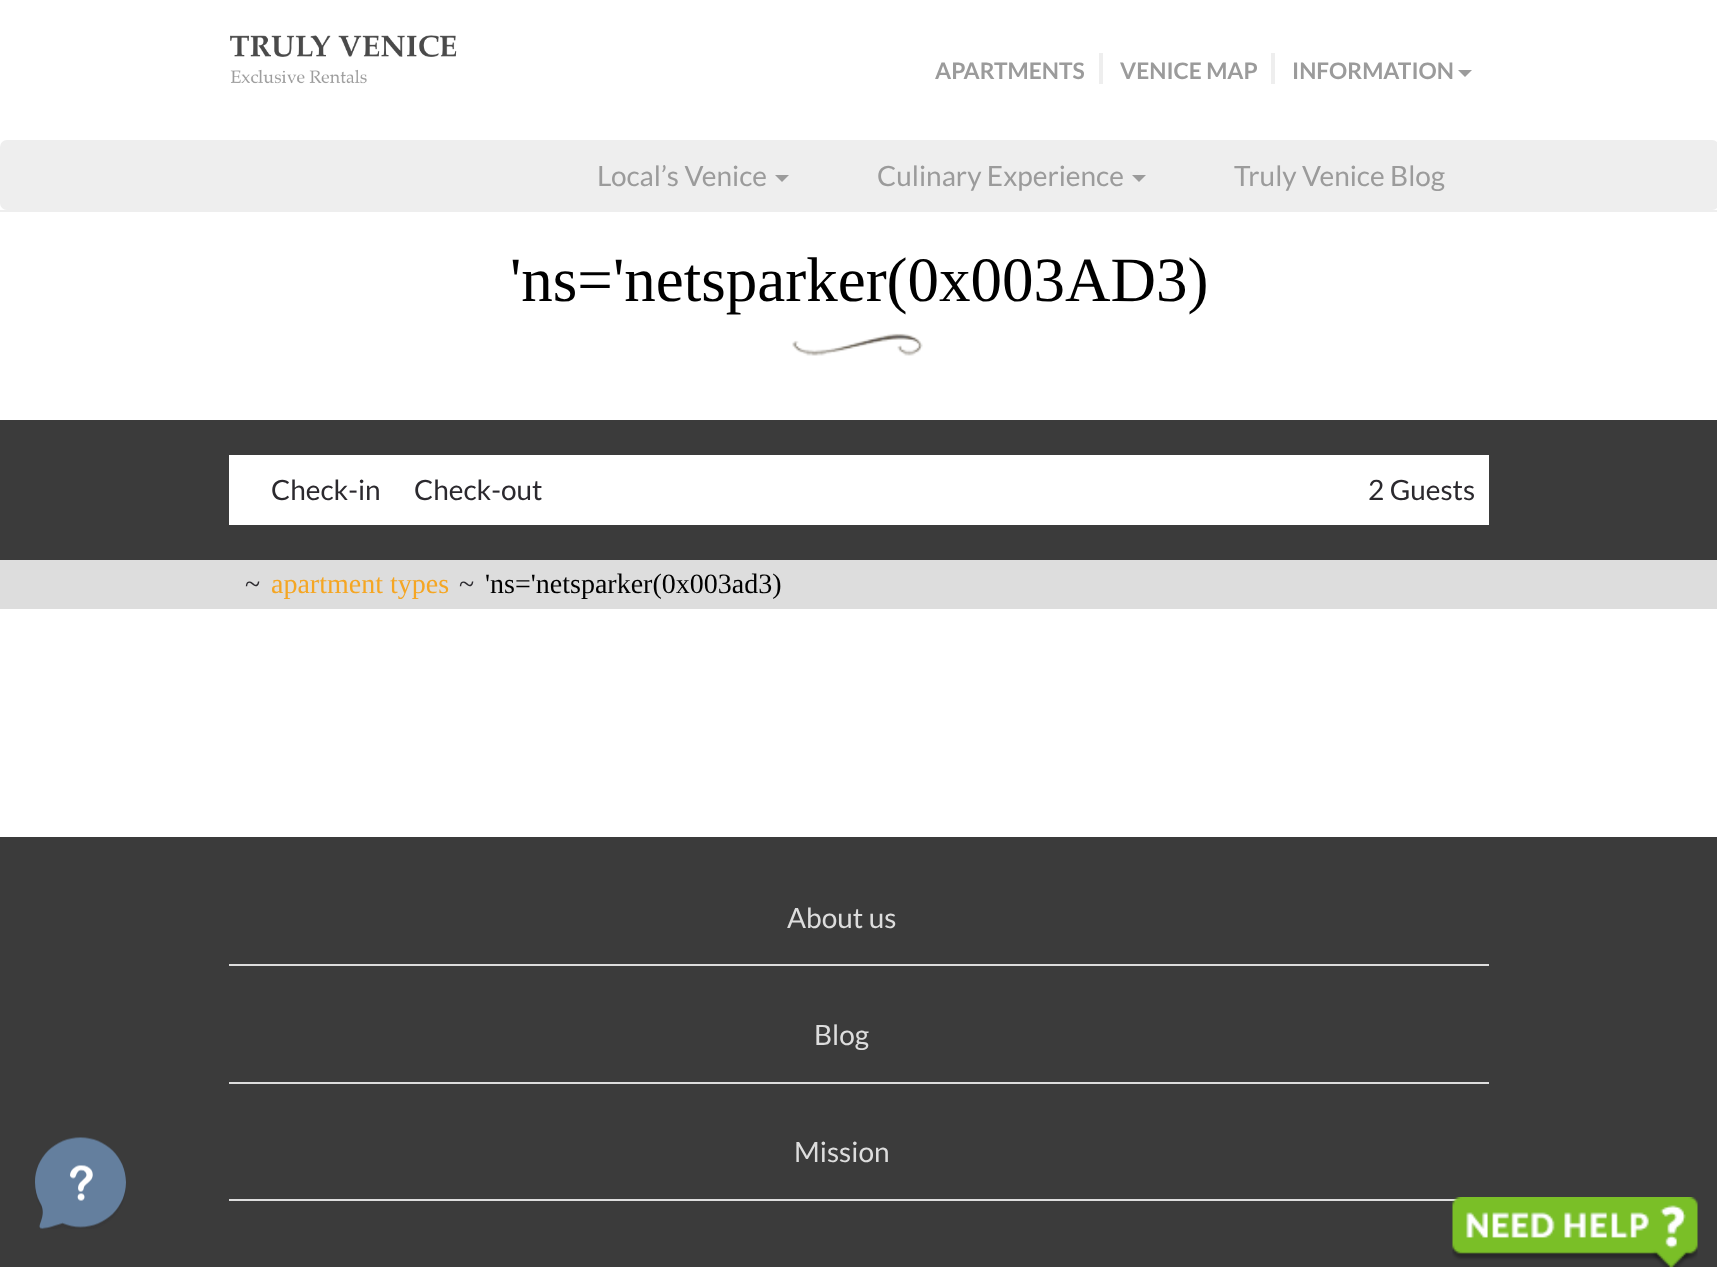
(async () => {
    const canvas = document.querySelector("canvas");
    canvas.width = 1717;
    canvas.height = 1267;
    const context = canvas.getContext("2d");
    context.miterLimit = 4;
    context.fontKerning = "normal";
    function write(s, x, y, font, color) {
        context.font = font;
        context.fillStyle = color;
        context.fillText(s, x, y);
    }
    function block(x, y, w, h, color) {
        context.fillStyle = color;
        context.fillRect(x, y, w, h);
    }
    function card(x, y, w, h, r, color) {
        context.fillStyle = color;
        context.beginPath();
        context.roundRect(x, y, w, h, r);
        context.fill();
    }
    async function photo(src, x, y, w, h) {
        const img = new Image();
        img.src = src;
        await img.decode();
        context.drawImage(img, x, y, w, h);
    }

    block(0, 0, 1717, 1267, "rgb(255, 255, 255)");
    block(0, 210, 1717, 2, "rgb(238, 238, 238)");
    await photo("media/1.png", 230, 35, 227, 49);
    write("APARTMENTS", 935, 79, "bold 22.75px Lato", "rgb(155, 155, 155)");
    block(1099, 53, 4, 31, "rgb(238, 238, 238)");
    write("VENICE MAP", 1120, 79, "bold 22.75px Lato", "rgb(155, 155, 155)");
    block(1271, 53, 4, 31, "rgb(238, 238, 238)");
    write("INFORMATION", 1292, 79, "bold 22.75px Lato", "rgb(155, 155, 155)");
    context.beginPath();
    context.moveTo(1458, 70);
    context.lineTo(1472, 70);
    context.lineTo(1465, 77);
    context.closePath();
    context.fill();
    card(0, 140, 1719, 70, 7, "rgb(238, 238, 238)");
    write("Local’s Venice", 597, 186, "28px Lato", "rgb(155, 155, 155)");
    context.beginPath();
    context.moveTo(775, 175);
    context.lineTo(789, 175);
    context.lineTo(782, 182);
    context.closePath();
    context.fill();
    write("Culinary Experience", 877, 186, "28px Lato", "rgb(155, 155, 155)");
    context.beginPath();
    context.moveTo(1132, 175);
    context.lineTo(1146, 175);
    context.lineTo(1139, 182);
    context.closePath();
    context.fill();
    write("Truly Venice Blog", 1234, 186, "28px Lato", "rgb(155, 155, 155)");
    write("'ns='netsparker(0x003AD3)", 510, 301, "63px Liberation Serif", "rgb(0, 0, 0)");
    await photo("media/2.png", 792, 333, 131, 23);
    block(0, 420, 1717, 140, "rgb(59, 59, 59)");
    block(229, 455, 1260, 70, "rgb(255, 255, 255)");
    write("Check-in", 271, 500, "28px Lato", "rgb(43, 41, 46)");
    write("Check-out", 414, 500, "28px Lato", "rgb(43, 41, 46)");
    write("2 Guests", 1368, 500, "28px Lato", "rgb(43, 41, 46)");
    block(0, 560, 1717, 49, "rgb(221, 221, 221)");
    write("~", 245, 593, "28px Liberation Serif", "rgb(43, 41, 46)");
    write("apartment types", 271, 593, "28px Liberation Serif", "rgb(245, 166, 35)");
    write("~", 459, 593, "28px Liberation Serif", "rgb(43, 41, 46)");
    write("'ns='netsparker(0x003ad3)", 485, 593, "28px Liberation Serif", "rgb(0, 0, 0)");
    block(0, 837, 1717, 430, "rgb(59, 59, 59)");
    block(229, 964, 1260, 2, "rgb(221, 221, 221)");
    write("About us", 787, 928, "28px Lato", "rgb(221, 221, 221)");
    block(229, 1082, 1260, 2, "rgb(221, 221, 221)");
    write("Blog", 814, 1045, "28px Lato", "rgb(221, 221, 221)");
    block(229, 1199, 1232, 2, "rgb(221, 221, 221)");
    write("Mission", 794, 1162, "28px Lato", "rgb(221, 221, 221)");
    await photo("media/3.png", 35, 1137, 91, 92);
    await photo("media/4.png", 1452, 1197, 246, 70);
})();
